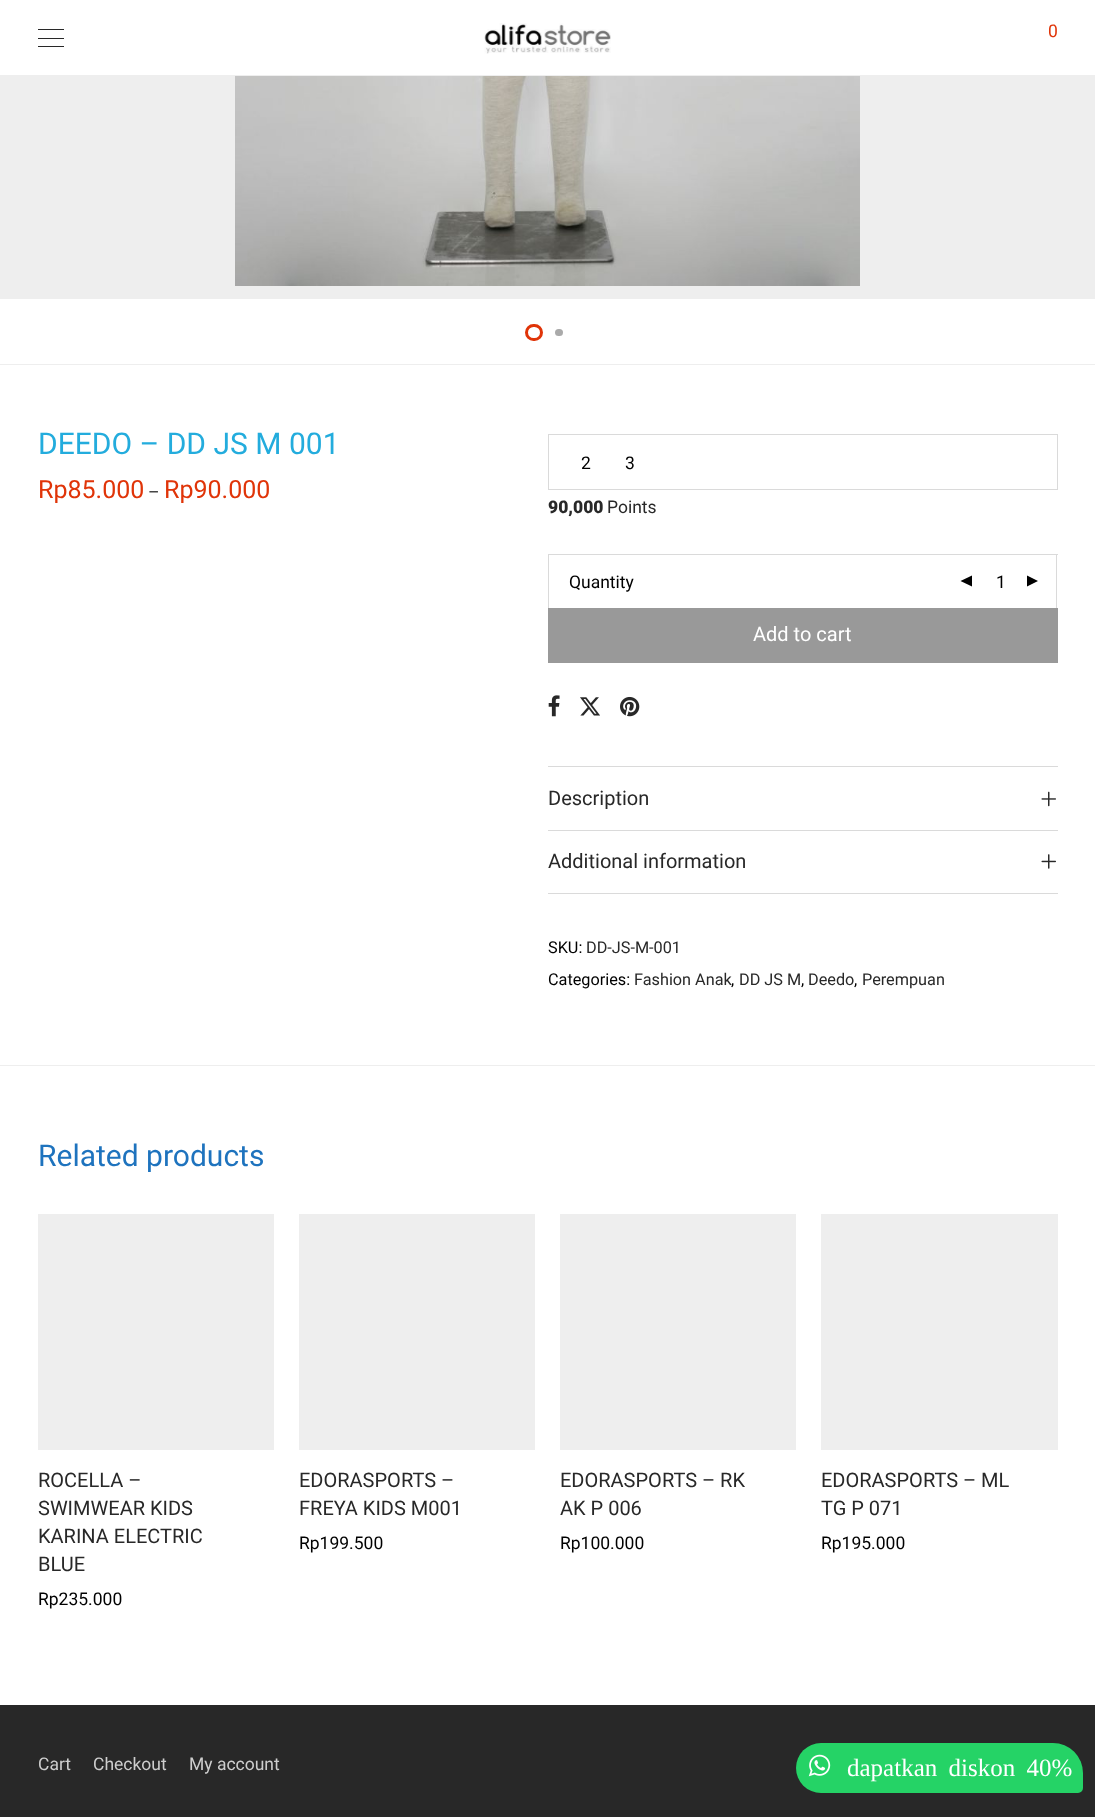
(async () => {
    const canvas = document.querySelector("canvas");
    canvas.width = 1095;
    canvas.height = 1817;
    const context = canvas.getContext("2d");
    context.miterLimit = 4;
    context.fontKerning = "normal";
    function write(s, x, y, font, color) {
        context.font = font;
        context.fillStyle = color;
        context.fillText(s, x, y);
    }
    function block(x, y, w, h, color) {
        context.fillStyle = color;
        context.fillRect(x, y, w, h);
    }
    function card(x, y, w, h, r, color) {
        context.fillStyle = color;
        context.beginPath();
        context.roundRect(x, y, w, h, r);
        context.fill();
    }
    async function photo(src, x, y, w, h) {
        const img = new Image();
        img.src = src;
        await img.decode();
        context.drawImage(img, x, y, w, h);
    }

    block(0, 0, 1095, 1817, "rgb(255, 255, 255)");
    block(38, 29, 26, 1, "rgb(40, 40, 40)");
    block(38, 38, 26, 1, "rgb(40, 40, 40)");
    block(38, 46, 26, 1, "rgb(40, 40, 40)");
    await photo("media/1.png", 484, 23, 127, 31);
    write("0", 1048, 37, "17.5px Roboto", "rgb(224, 52, 8)");
    block(0, 75, 1095, 224, "rgb(238, 238, 238)");
    await photo("media/2.png", 235, 76, 625, 210);
    block(0, 364, 1095, 1, "rgb(238, 238, 238)");
    context.beginPath();
    context.roundRect(526.5, 325.5, 15, 14, 7);
    context.strokeStyle = "rgb(224, 52, 8)";
    context.lineWidth = 3;
    context.stroke();
    card(555, 329, 8, 7, 3.5, "rgb(170, 170, 170)");
    write("DEEDO – DD JS M 001", 38, 454, "30px Roboto", "rgb(35, 172, 221)");
    write("Rp85.000", 38, 498, "25px Roboto", "rgb(224, 52, 8)");
    write("–", 148, 498, "17.5px Roboto", "rgb(40, 40, 40)");
    write("Rp90.000", 164, 498, "25px Roboto", "rgb(224, 52, 8)");
    context.strokeStyle = "rgb(218, 218, 218)";
    context.lineWidth = 1;
    context.strokeRect(548.5, 434.5, 509, 55);
    write("2", 581, 469, "17.5px Roboto", "rgb(0, 0, 0)");
    write("3", 625, 469, "17.5px Roboto", "rgb(0, 0, 0)");
    write("90,000", 548, 513, "900 17.5px Roboto", "rgb(40, 40, 40)");
    write("Points", 607, 513, "17.5px Roboto", "rgb(40, 40, 40)");
    block(548, 554, 510, 1, "rgb(218, 218, 218)");
    block(1056, 554, 1, 54, "rgb(218, 218, 218)");
    block(548, 554, 1, 54, "rgb(218, 218, 218)");
    write("Quantity", 569, 588, "17.5px Roboto", "rgb(0, 0, 0)");
    context.beginPath();
    context.moveTo(972, 575.5);
    context.lineTo(972, 586.5);
    context.lineTo(960.5, 581);
    context.closePath();
    context.fill();
    write("1", 996, 588, "17.5px Roboto", "rgb(0, 0, 0)");
    context.beginPath();
    context.moveTo(1027, 575.5);
    context.lineTo(1027, 586.5);
    context.lineTo(1038, 581);
    context.closePath();
    context.fill();
    block(548, 608, 510, 55, "rgb(153, 153, 153)");
    write("Add to cart", 753, 641, "20px Roboto", "rgb(255, 255, 255)");
    await photo("media/3.png", 548, 695, 12, 22);
    await photo("media/4.png", 580, 697, 20, 19);
    await photo("media/5.png", 620, 696, 20, 21);
    block(548, 766, 510, 1, "rgb(218, 218, 218)");
    write("Description", 548, 805, "20px Roboto", "rgb(40, 40, 40)");
    await photo("media/6.png", 1041, 791, 15, 16);
    block(548, 893, 510, 1, "rgb(218, 218, 218)");
    block(548, 830, 510, 1, "rgb(218, 218, 218)");
    write("Additional information", 548, 868, "20px Roboto", "rgb(40, 40, 40)");
    await photo("media/7.png", 1041, 854, 15, 15);
    write("SKU:", 548, 953, "16.25px Roboto", "rgb(0, 0, 0)");
    write("DD-JS-M-001", 586, 953, "16.25px Roboto", "rgb(40, 40, 40)");
    write("Categories:", 548, 985, "16.25px Roboto", "rgb(0, 0, 0)");
    write("Fashion Anak", 634, 985, "16.25px Roboto", "rgb(40, 40, 40)");
    write(",", 731, 985, "16.25px Roboto", "rgb(0, 0, 0)");
    write("DD JS M", 739, 985, "16.25px Roboto", "rgb(40, 40, 40)");
    write(",", 801, 985, "16.25px Roboto", "rgb(0, 0, 0)");
    write("Deedo", 808, 985, "16.25px Roboto", "rgb(40, 40, 40)");
    write(",", 854, 985, "16.25px Roboto", "rgb(0, 0, 0)");
    write("Perempuan", 862, 985, "16.25px Roboto", "rgb(40, 40, 40)");
    block(0, 1065, 1095, 1, "rgb(238, 238, 238)");
    write("Related products", 38, 1166, "30px Roboto", "rgb(30, 115, 190)");
    block(38, 1214, 236, 236, "rgb(238, 238, 238)");
    write("ROCELLA –", 38, 1487, "20px Roboto", "rgb(40, 40, 40)");
    write("SWIMWEAR KIDS", 38, 1515, "20px Roboto", "rgb(40, 40, 40)");
    write("KARINA ELECTRIC", 38, 1543, "20px Roboto", "rgb(40, 40, 40)");
    write("BLUE", 38, 1571, "20px Roboto", "rgb(40, 40, 40)");
    write("Rp235.000", 38, 1605, "17.5px Roboto", "rgb(0, 0, 0)");
    block(299, 1214, 236, 236, "rgb(238, 238, 238)");
    write("EDORASPORTS –", 299, 1487, "20px Roboto", "rgb(40, 40, 40)");
    write("FREYA KIDS M001", 299, 1515, "20px Roboto", "rgb(40, 40, 40)");
    write("Rp199.500", 299, 1549, "17.5px Roboto", "rgb(0, 0, 0)");
    block(560, 1214, 236, 236, "rgb(238, 238, 238)");
    write("EDORASPORTS – RK", 560, 1487, "20px Roboto", "rgb(40, 40, 40)");
    write("AK P 006", 560, 1515, "20px Roboto", "rgb(40, 40, 40)");
    write("Rp100.000", 560, 1549, "17.5px Roboto", "rgb(0, 0, 0)");
    block(821, 1214, 237, 236, "rgb(238, 238, 238)");
    write("EDORASPORTS – ML", 821, 1487, "20px Roboto", "rgb(40, 40, 40)");
    write("TG P 071", 821, 1515, "20px Roboto", "rgb(40, 40, 40)");
    write("Rp195.000", 821, 1549, "17.5px Roboto", "rgb(0, 0, 0)");
    block(0, 1705, 1095, 112, "rgb(40, 40, 40)");
    write("Cart", 38, 1770, "17.5px Roboto", "rgb(206, 206, 206)");
    write("Checkout", 93, 1770, "17.5px Roboto", "rgb(206, 206, 206)");
    write("My account", 189, 1770, "17.5px Roboto", "rgb(206, 206, 206)");
    context.fillStyle = "rgb(37, 211, 102)";
    context.beginPath();
    context.roundRect(796, 1743, 287, 50, [25, 30, 5, 25]);
    context.fill();
    await photo("media/8.png", 808, 1754, 23, 23);
    context.wordSpacing = "5px";
    write("dapatkan diskon 40%", 847, 1776, "25px Liberation Serif", "rgb(255, 255, 255)");
})();
